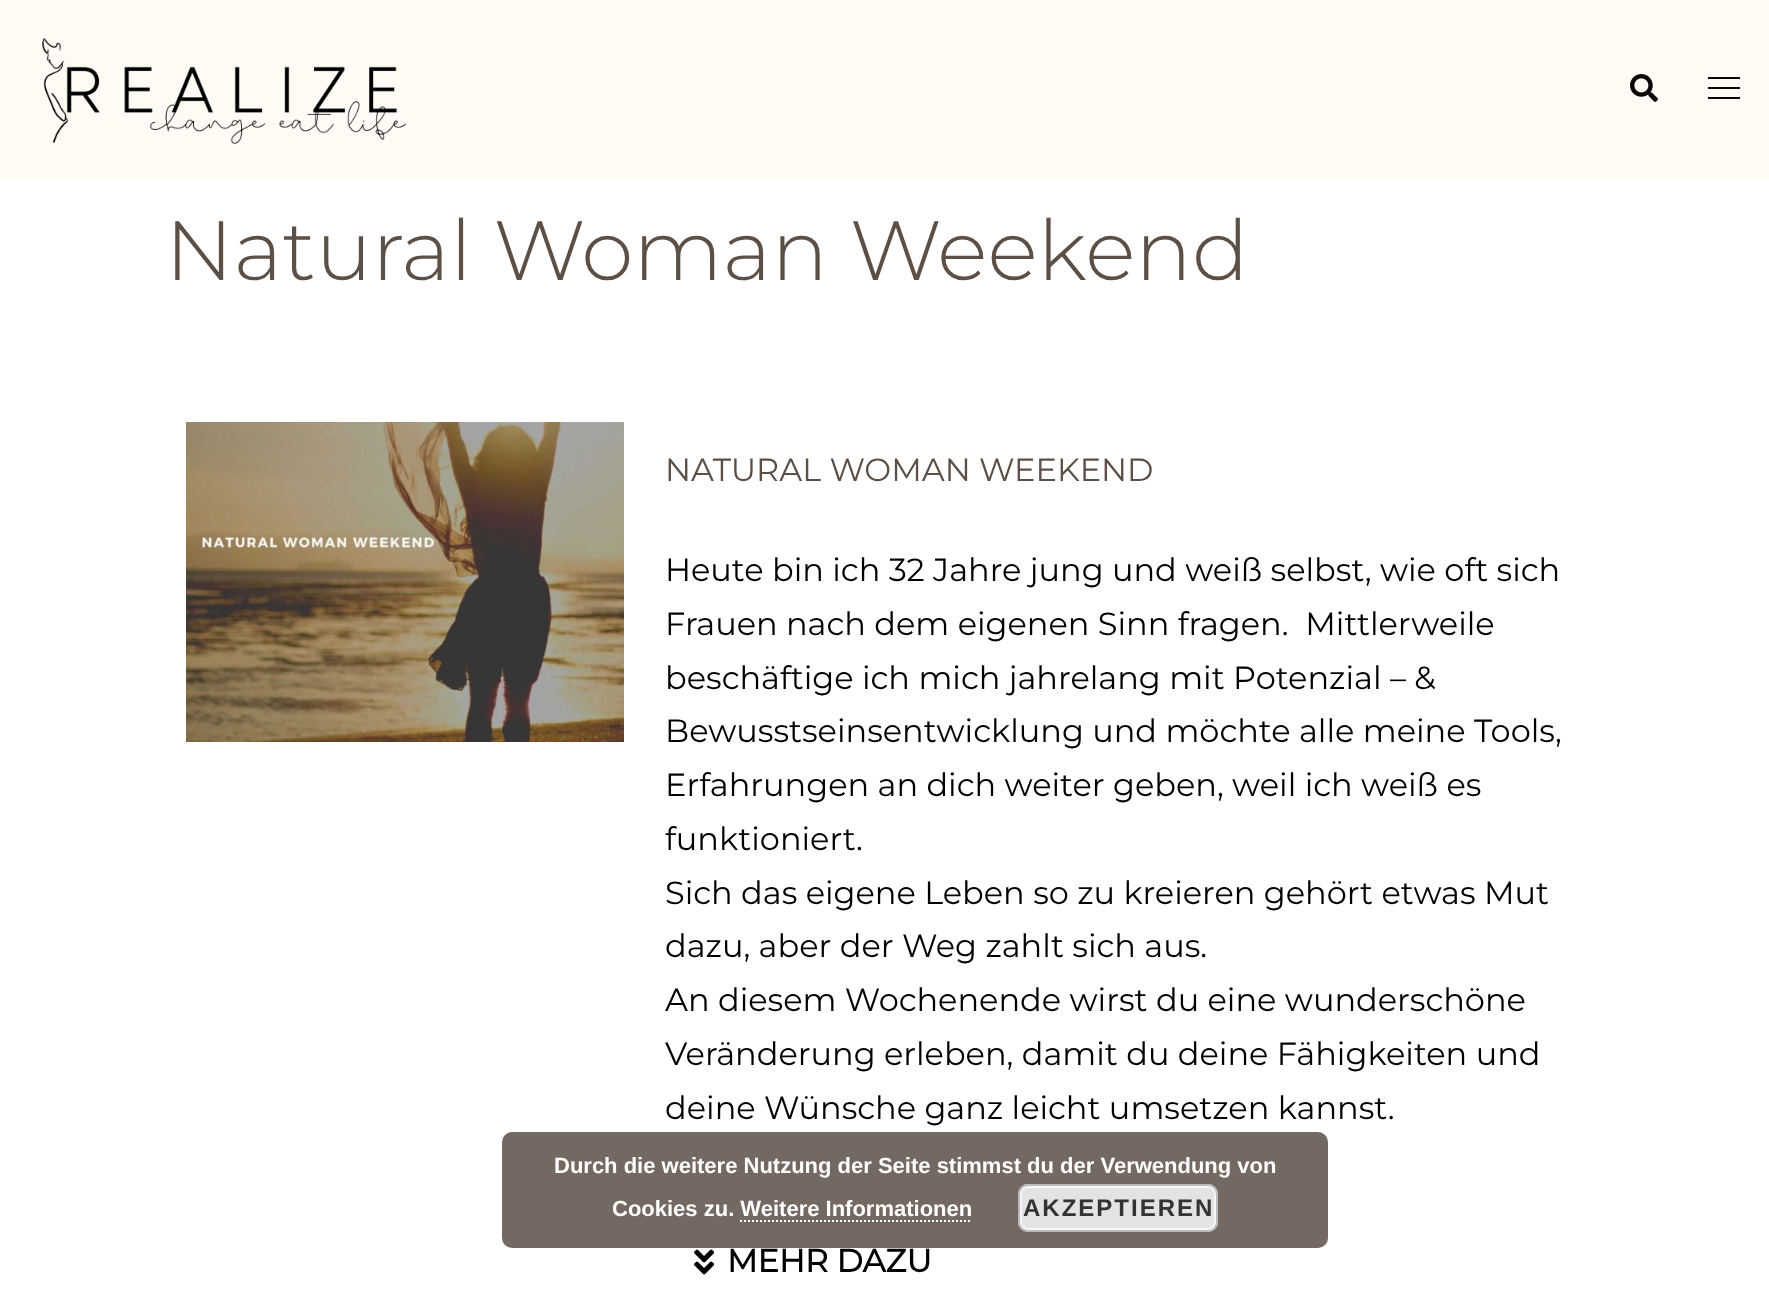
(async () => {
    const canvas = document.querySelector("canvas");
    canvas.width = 1769;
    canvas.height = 1307;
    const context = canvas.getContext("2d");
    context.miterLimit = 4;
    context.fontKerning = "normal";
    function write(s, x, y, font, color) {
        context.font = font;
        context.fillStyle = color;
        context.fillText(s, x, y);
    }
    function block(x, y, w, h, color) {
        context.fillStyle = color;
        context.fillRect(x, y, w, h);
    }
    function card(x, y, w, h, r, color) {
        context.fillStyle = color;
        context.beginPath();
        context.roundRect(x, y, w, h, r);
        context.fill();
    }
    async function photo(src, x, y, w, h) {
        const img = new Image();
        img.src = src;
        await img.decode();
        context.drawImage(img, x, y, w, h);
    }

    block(0, 0, 1769, 1307, "rgb(255, 255, 255)");
    block(0, 0, 1769, 180, "rgb(254, 251, 244)");
    await photo("media/1.png", 42, 38, 364, 106);
    await photo("media/2.png", 1630, 74, 28, 28);
    block(1708, 77, 32, 2, "rgb(10, 6, 7)");
    block(1708, 87, 32, 2, "rgb(10, 6, 7)");
    block(1708, 97, 32, 2, "rgb(10, 6, 7)");
    write("Natural Woman Weekend", 165, 280, "300 84px Montserrat", "rgb(92, 79, 70)");
    await photo("media/3.png", 186, 422, 438, 320);
    write("NATURAL WOMAN WEEKEND", 665, 481, "32px Montserrat", "rgb(92, 79, 70)");
    write("Heute bin ich 32 Jahre jung und weiß selbst, wie oft sich", 665, 581, "32px Montserrat", "rgb(0, 0, 0)");
    write("Frauen nach dem eigenen Sinn fragen.  Mittlerweile", 665, 635, "32px Montserrat", "rgb(0, 0, 0)");
    write("beschäftige ich mich jahrelang mit Potenzial – &", 665, 689, "32px Montserrat", "rgb(0, 0, 0)");
    write("Bewusstseinsentwicklung und möchte alle meine Tools,", 665, 742, "32px Montserrat", "rgb(0, 0, 0)");
    write("Erfahrungen an dich weiter geben, weil ich weiß es", 665, 796, "32px Montserrat", "rgb(0, 0, 0)");
    write("funktioniert.", 665, 850, "32px Montserrat", "rgb(0, 0, 0)");
    write("Sich das eigene Leben so zu kreieren gehört etwas Mut", 665, 904, "32px Montserrat", "rgb(0, 0, 0)");
    write("dazu, aber der Weg zahlt sich aus.", 665, 957, "32px Montserrat", "rgb(0, 0, 0)");
    write("An diesem Wochenende wirst du eine wunderschöne", 665, 1011, "32px Montserrat", "rgb(0, 0, 0)");
    write("Veränderung erleben, damit du deine Fähigkeiten und", 665, 1065, "32px Montserrat", "rgb(0, 0, 0)");
    write("deine Wünsche ganz leicht umsetzen kannst.", 665, 1119, "32px Montserrat", "rgb(0, 0, 0)");
    await photo("media/4.png", 694, 1249, 20, 26);
    write("MEHR DAZU", 727, 1272, "bold 32px Montserrat", "rgb(0, 0, 0)");
    card(502, 1132, 826, 116, 10, "rgb(116, 105, 98)");
    write("Durch die weitere Nutzung der Seite stimmst du der Verwendung von", 554, 1173, "bold 22px Liberation Sans", "rgb(255, 255, 255)");
    write("Cookies zu. Weitere Informationen", 612, 1216, "bold 22px Liberation Sans", "rgb(255, 255, 255)");
    card(1018, 1184, 200, 48, 10, "rgb(227, 227, 227)");
    context.beginPath();
    context.roundRect(1021, 1187, 194, 42, 7);
    context.strokeStyle = "rgb(246, 246, 246)";
    context.lineWidth = 2;
    context.stroke();
    context.beginPath();
    context.roundRect(1019, 1185, 198, 46, 9);
    context.strokeStyle = "rgb(187, 187, 187)";
    context.stroke();
    context.letterSpacing = "2px";
    write("AKZEPTIEREN", 1023, 1216, "bold 24px Liberation Sans", "rgb(51, 51, 51)");
    context.beginPath();
    context.moveTo(740, 1221);
    context.lineTo(972, 1221);
    context.strokeStyle = "rgb(255, 255, 255)";
    context.setLineDash([2, 2]);
    context.stroke();
})();
